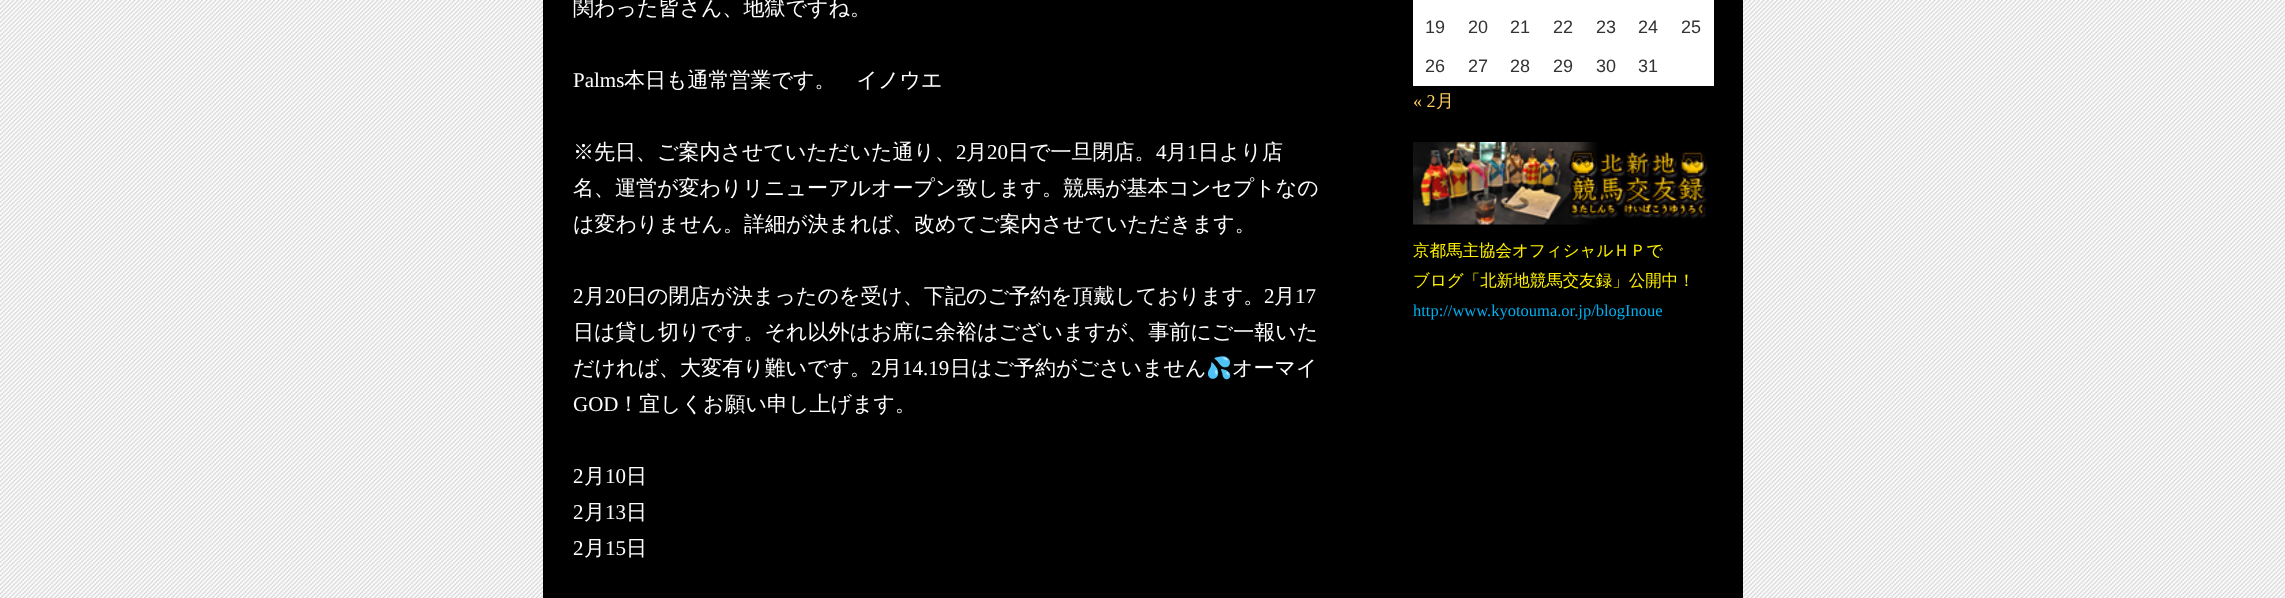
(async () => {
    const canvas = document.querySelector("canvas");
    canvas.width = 2285;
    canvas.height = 598;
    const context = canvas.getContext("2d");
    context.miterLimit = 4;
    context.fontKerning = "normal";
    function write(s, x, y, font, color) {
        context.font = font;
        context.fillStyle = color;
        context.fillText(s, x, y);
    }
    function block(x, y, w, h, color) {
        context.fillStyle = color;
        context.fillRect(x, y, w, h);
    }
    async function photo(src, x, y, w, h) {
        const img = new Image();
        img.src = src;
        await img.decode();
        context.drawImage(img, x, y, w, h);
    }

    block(0, 0, 2285, 598, "rgb(255, 255, 255)");
    await photo("media/1.png", 0, 0, 2285, 598);
    block(543, 0, 1200, 598, "rgb(0, 0, 0)");
    write("関わった皆さん、地獄ですね。", 573, 15, "500 21px WenQuanYi Zen Hei", "rgb(255, 255, 255)");
    write("Palms", 573, 87, "21px Liberation Serif", "rgb(255, 255, 255)");
    write("本日も通常営業です。　イノウエ", 624, 87, "500 21px WenQuanYi Zen Hei", "rgb(255, 255, 255)");
    write("※先日、ご案内させていただいた通り、", 573, 159, "500 21px WenQuanYi Zen Hei", "rgb(255, 255, 255)");
    write("2", 956, 159, "21px Liberation Serif", "rgb(255, 255, 255)");
    write("月", 966, 159, "500 21px WenQuanYi Zen Hei", "rgb(255, 255, 255)");
    write("20", 987, 159, "21px Liberation Serif", "rgb(255, 255, 255)");
    write("日で一旦閉店。", 1008, 159, "500 21px WenQuanYi Zen Hei", "rgb(255, 255, 255)");
    write("4", 1156, 159, "21px Liberation Serif", "rgb(255, 255, 255)");
    write("月", 1166, 159, "500 21px WenQuanYi Zen Hei", "rgb(255, 255, 255)");
    write("1", 1187, 159, "21px Liberation Serif", "rgb(255, 255, 255)");
    write("日より店", 1198, 159, "500 21px WenQuanYi Zen Hei", "rgb(255, 255, 255)");
    write("名、運営が変わりリニューアルオープン致します。競馬が基本コンセプトなの", 573, 195, "500 21px WenQuanYi Zen Hei", "rgb(255, 255, 255)");
    write("は変わりません。詳細が決まれば、改めてご案内させていただきます。", 573, 231, "500 21px WenQuanYi Zen Hei", "rgb(255, 255, 255)");
    write("2", 573, 303, "21px Liberation Serif", "rgb(255, 255, 255)");
    write("月", 584, 303, "500 21px WenQuanYi Zen Hei", "rgb(255, 255, 255)");
    write("20", 605, 303, "21px Liberation Serif", "rgb(255, 255, 255)");
    write("日の閉店が決まったのを受け、下記のご予約を頂戴しております。", 626, 303, "500 21px WenQuanYi Zen Hei", "rgb(255, 255, 255)");
    write("2", 1264, 303, "21px Liberation Serif", "rgb(255, 255, 255)");
    write("月", 1274, 303, "500 21px WenQuanYi Zen Hei", "rgb(255, 255, 255)");
    write("17", 1295, 303, "21px Liberation Serif", "rgb(255, 255, 255)");
    write("日は貸し切りです。それ以外はお席に余裕はございますが、事前にご一報いた", 573, 339, "500 21px WenQuanYi Zen Hei", "rgb(255, 255, 255)");
    write("だければ、大変有り難いです。", 573, 375, "500 21px WenQuanYi Zen Hei", "rgb(255, 255, 255)");
    write("2", 871, 375, "21px Liberation Serif", "rgb(255, 255, 255)");
    write("月", 881, 375, "500 21px WenQuanYi Zen Hei", "rgb(255, 255, 255)");
    write("14.19", 902, 375, "21px Liberation Serif", "rgb(255, 255, 255)");
    write("日はご予約がごさいません", 950, 375, "500 21px WenQuanYi Zen Hei", "rgb(255, 255, 255)");
    write("💦", 1206, 375, "21px Noto Color Emoji", "rgb(255, 255, 255)");
    write("オーマイ", 1232, 375, "500 21px WenQuanYi Zen Hei", "rgb(255, 255, 255)");
    write("GOD", 573, 411, "21px Liberation Serif", "rgb(255, 255, 255)");
    write("！宜しくお願い申し上げます。", 618, 411, "500 21px WenQuanYi Zen Hei", "rgb(255, 255, 255)");
    write("2", 573, 483, "21px Liberation Serif", "rgb(255, 255, 255)");
    write("月", 584, 483, "500 21px WenQuanYi Zen Hei", "rgb(255, 255, 255)");
    write("10", 605, 483, "21px Liberation Serif", "rgb(255, 255, 255)");
    write("日", 626, 483, "500 21px WenQuanYi Zen Hei", "rgb(255, 255, 255)");
    write("2", 573, 519, "21px Liberation Serif", "rgb(255, 255, 255)");
    write("月", 584, 519, "500 21px WenQuanYi Zen Hei", "rgb(255, 255, 255)");
    write("13", 605, 519, "21px Liberation Serif", "rgb(255, 255, 255)");
    write("日", 626, 519, "500 21px WenQuanYi Zen Hei", "rgb(255, 255, 255)");
    write("2", 573, 555, "21px Liberation Serif", "rgb(255, 255, 255)");
    write("月", 584, 555, "500 21px WenQuanYi Zen Hei", "rgb(255, 255, 255)");
    write("15", 605, 555, "21px Liberation Serif", "rgb(255, 255, 255)");
    write("日", 626, 555, "500 21px WenQuanYi Zen Hei", "rgb(255, 255, 255)");
    block(1415, 0, 42, 6, "rgb(255, 255, 255)");
    block(1457, 0, 256, 8, "rgb(255, 255, 255)");
    block(1712, 6, 2, 80, "rgb(255, 255, 255)");
    block(1713, 0, 1, 8, "rgb(255, 255, 255)");
    block(1415, 8, 42, 37, "rgb(255, 255, 255)");
    block(1413, 6, 44, 2, "rgb(255, 255, 255)");
    block(1413, 45, 44, 2, "rgb(255, 255, 255)");
    block(1413, 84, 44, 2, "rgb(255, 255, 255)");
    block(1413, 45, 2, 41, "rgb(255, 255, 255)");
    block(1413, 0, 2, 47, "rgb(255, 255, 255)");
    write("19", 1425, 33, "18px Liberation Sans", "rgb(51, 51, 51)");
    block(1457, 8, 255, 39, "rgb(255, 255, 255)");
    write("20", 1468, 33, "18px Liberation Sans", "rgb(51, 51, 51)");
    write("21", 1510, 33, "18px Liberation Sans", "rgb(51, 51, 51)");
    write("22", 1553, 33, "18px Liberation Sans", "rgb(51, 51, 51)");
    write("23", 1596, 33, "18px Liberation Sans", "rgb(51, 51, 51)");
    write("24", 1638, 33, "18px Liberation Sans", "rgb(51, 51, 51)");
    write("25", 1681, 33, "18px Liberation Sans", "rgb(51, 51, 51)");
    block(1415, 47, 42, 37, "rgb(255, 255, 255)");
    write("26", 1425, 72, "18px Liberation Sans", "rgb(51, 51, 51)");
    block(1457, 47, 255, 39, "rgb(255, 255, 255)");
    write("27", 1468, 72, "18px Liberation Sans", "rgb(51, 51, 51)");
    write("28", 1510, 72, "18px Liberation Sans", "rgb(51, 51, 51)");
    write("29", 1553, 72, "18px Liberation Sans", "rgb(51, 51, 51)");
    write("30", 1596, 72, "18px Liberation Sans", "rgb(51, 51, 51)");
    write("31", 1638, 72, "18px Liberation Sans", "rgb(51, 51, 51)");
    write("« 2", 1413, 107, "18px Liberation Serif", "rgb(255, 204, 102)");
    write("月", 1436, 107, "500 18px WenQuanYi Zen Hei", "rgb(255, 204, 102)");
    await photo("media/2.png", 1413, 142, 295, 83);
    write("京都馬主協会オフィシャルＨＰで", 1413, 256, "500 16.5px WenQuanYi Zen Hei", "rgb(255, 241, 0)");
    write("ブログ「北新地競馬交友録」公開中！", 1413, 286, "500 16.5px WenQuanYi Zen Hei", "rgb(255, 241, 0)");
    write("http://www.kyotouma.or.jp/blogInoue", 1413, 316, "16.5px Liberation Serif", "rgb(0, 176, 240)");
})();
